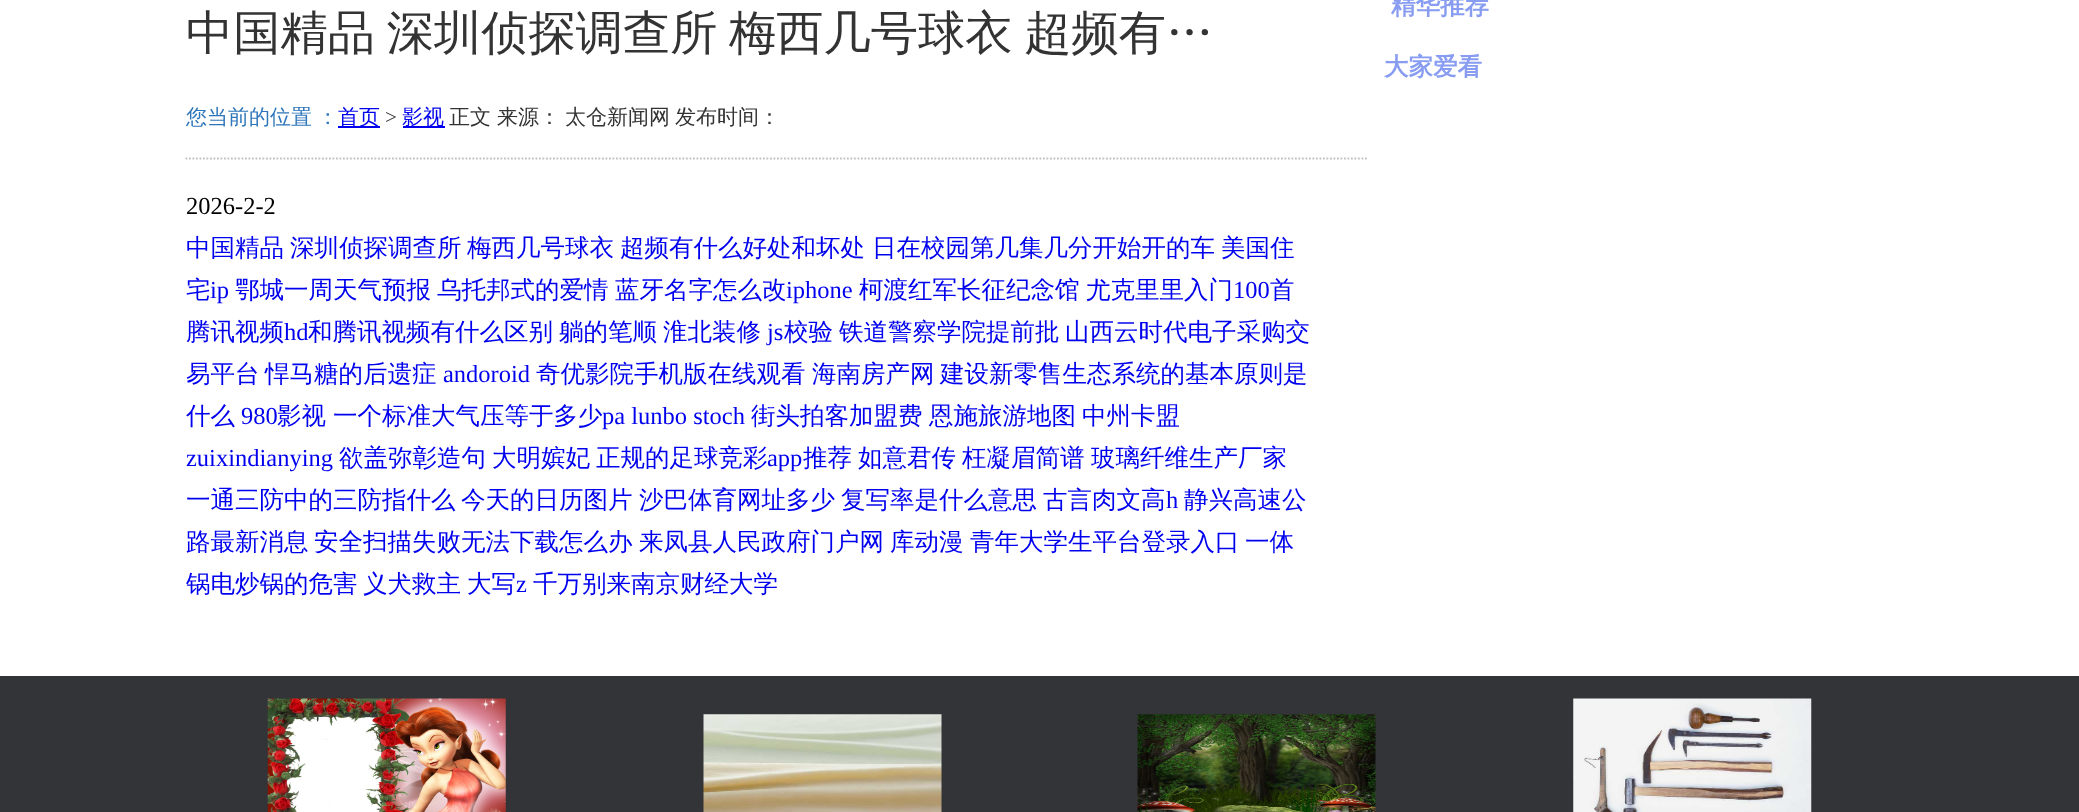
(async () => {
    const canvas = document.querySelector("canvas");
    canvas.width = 2079;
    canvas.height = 812;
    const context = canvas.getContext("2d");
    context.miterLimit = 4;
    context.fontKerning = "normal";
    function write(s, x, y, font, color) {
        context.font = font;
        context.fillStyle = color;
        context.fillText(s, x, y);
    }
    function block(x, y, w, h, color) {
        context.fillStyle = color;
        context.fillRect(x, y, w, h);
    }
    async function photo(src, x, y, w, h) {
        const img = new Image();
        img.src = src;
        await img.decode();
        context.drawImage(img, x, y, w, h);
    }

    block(0, 0, 2079, 812, "rgb(255, 255, 255)");
    context.wordSpacing = "-2.5px";
    write("中国精品 深圳侦探调查所 梅西几号球衣 超频有…", 186, 49, "500 47.25px WenQuanYi Zen Hei", "rgb(51, 51, 51)");
    context.beginPath();
    context.moveTo(185.5, 158.5);
    context.lineTo(1367, 158.5);
    context.strokeStyle = "rgb(192, 192, 192)";
    context.lineWidth = 1.8;
    context.setLineDash([1.75, 1.75]);
    context.stroke();
    context.wordSpacing = "-1px";
    write("您当前的位置 ：", 186, 124, "500 21px WenQuanYi Zen Hei", "rgb(45, 118, 186)");
    block(338, 126, 42, 2, "rgb(0, 0, 238)");
    context.wordSpacing = "0px";
    write("首页", 338, 124, "500 21px WenQuanYi Zen Hei", "rgb(0, 0, 238)");
    write(">", 385, 124, "21px Liberation Serif", "rgb(51, 51, 51)");
    block(403, 126, 42, 2, "rgb(0, 0, 238)");
    write("影视", 402, 124, "500 21px WenQuanYi Zen Hei", "rgb(0, 0, 238)");
    write("正文", 449, 124, "500 21px WenQuanYi Zen Hei", "rgb(51, 51, 51)");
    write("来源：", 497, 124, "500 21px WenQuanYi Zen Hei", "rgb(51, 51, 51)");
    write("太仓新闻网", 565, 124, "500 21px WenQuanYi Zen Hei", "rgb(51, 51, 51)");
    write("发布时间：", 675, 124, "500 21px WenQuanYi Zen Hei", "rgb(51, 51, 51)");
    write("2026-2-2", 186, 214, "24.5px Liberation Serif", "rgb(0, 0, 0)");
    write("中国精品", 186, 256, "500 24.5px WenQuanYi Zen Hei", "rgb(0, 0, 238)");
    write("深圳侦探调查所", 290, 256, "500 24.5px WenQuanYi Zen Hei", "rgb(0, 0, 238)");
    write("梅西几号球衣", 467, 256, "500 24.5px WenQuanYi Zen Hei", "rgb(0, 0, 238)");
    write("超频有什么好处和坏处", 620, 256, "500 24.5px WenQuanYi Zen Hei", "rgb(0, 0, 238)");
    write("日在校园第几集几分开始开的车", 872, 256, "500 24.5px WenQuanYi Zen Hei", "rgb(0, 0, 238)");
    write("美国住", 1221, 256, "500 24.5px WenQuanYi Zen Hei", "rgb(0, 0, 238)");
    write("宅", 186, 298, "500 24.5px WenQuanYi Zen Hei", "rgb(0, 0, 238)");
    write("ip", 210, 298, "24.5px Liberation Serif", "rgb(0, 0, 238)");
    write("鄂城一周天气预报", 235, 298, "500 24.5px WenQuanYi Zen Hei", "rgb(0, 0, 238)");
    write("乌托邦式的爱情", 437, 298, "500 24.5px WenQuanYi Zen Hei", "rgb(0, 0, 238)");
    write("蓝牙名字怎么改", 615, 298, "500 24.5px WenQuanYi Zen Hei", "rgb(0, 0, 238)");
    write("iphone", 786, 298, "24.5px Liberation Serif", "rgb(0, 0, 238)");
    write("柯渡红军长征纪念馆", 859, 298, "500 24.5px WenQuanYi Zen Hei", "rgb(0, 0, 238)");
    write("尤克里里入门", 1086, 298, "500 24.5px WenQuanYi Zen Hei", "rgb(0, 0, 238)");
    write("100", 1233, 298, "24.5px Liberation Serif", "rgb(0, 0, 238)");
    write("首", 1270, 298, "500 24.5px WenQuanYi Zen Hei", "rgb(0, 0, 238)");
    write("腾讯视频", 186, 340, "500 24.5px WenQuanYi Zen Hei", "rgb(0, 0, 238)");
    write("hd", 284, 340, "24.5px Liberation Serif", "rgb(0, 0, 238)");
    write("和腾讯视频有什么区别", 308, 340, "500 24.5px WenQuanYi Zen Hei", "rgb(0, 0, 238)");
    write("躺的笔顺", 559, 340, "500 24.5px WenQuanYi Zen Hei", "rgb(0, 0, 238)");
    write("淮北装修", 663, 340, "500 24.5px WenQuanYi Zen Hei", "rgb(0, 0, 238)");
    write("js", 767, 340, "24.5px Liberation Serif", "rgb(0, 0, 238)");
    write("校验", 784, 340, "500 24.5px WenQuanYi Zen Hei", "rgb(0, 0, 238)");
    write("铁道警察学院提前批", 839, 340, "500 24.5px WenQuanYi Zen Hei", "rgb(0, 0, 238)");
    write("山西云时代电子采购交", 1065, 340, "500 24.5px WenQuanYi Zen Hei", "rgb(0, 0, 238)");
    write("易平台", 186, 382, "500 24.5px WenQuanYi Zen Hei", "rgb(0, 0, 238)");
    write("悍马糖的后遗症", 265, 382, "500 24.5px WenQuanYi Zen Hei", "rgb(0, 0, 238)");
    write("andoroid", 443, 382, "24.5px Liberation Serif", "rgb(0, 0, 238)");
    write("奇优影院手机版在线观看", 536, 382, "500 24.5px WenQuanYi Zen Hei", "rgb(0, 0, 238)");
    write("海南房产网", 812, 382, "500 24.5px WenQuanYi Zen Hei", "rgb(0, 0, 238)");
    write("建设新零售生态系统的基本原则是", 940, 382, "500 24.5px WenQuanYi Zen Hei", "rgb(0, 0, 238)");
    write("什么", 186, 424, "500 24.5px WenQuanYi Zen Hei", "rgb(0, 0, 238)");
    write("980", 241, 424, "24.5px Liberation Serif", "rgb(0, 0, 238)");
    write("影视", 277, 424, "500 24.5px WenQuanYi Zen Hei", "rgb(0, 0, 238)");
    write("一个标准大气压等于多少", 333, 424, "500 24.5px WenQuanYi Zen Hei", "rgb(0, 0, 238)");
    write("pa lunbo stoch", 602, 424, "24.5px Liberation Serif", "rgb(0, 0, 238)");
    write("街头拍客加盟费", 751, 424, "500 24.5px WenQuanYi Zen Hei", "rgb(0, 0, 238)");
    write("恩施旅游地图", 929, 424, "500 24.5px WenQuanYi Zen Hei", "rgb(0, 0, 238)");
    write("中州卡盟", 1082, 424, "500 24.5px WenQuanYi Zen Hei", "rgb(0, 0, 238)");
    write("zuixindianying", 186, 466, "24.5px Liberation Serif", "rgb(0, 0, 238)");
    write("欲盖弥彰造句", 339, 466, "500 24.5px WenQuanYi Zen Hei", "rgb(0, 0, 238)");
    write("大明嫔妃", 492, 466, "500 24.5px WenQuanYi Zen Hei", "rgb(0, 0, 238)");
    write("正规的足球竞彩", 596, 466, "500 24.5px WenQuanYi Zen Hei", "rgb(0, 0, 238)");
    write("app", 767, 466, "24.5px Liberation Serif", "rgb(0, 0, 238)");
    write("推荐", 803, 466, "500 24.5px WenQuanYi Zen Hei", "rgb(0, 0, 238)");
    write("如意君传", 858, 466, "500 24.5px WenQuanYi Zen Hei", "rgb(0, 0, 238)");
    write("枉凝眉简谱", 962, 466, "500 24.5px WenQuanYi Zen Hei", "rgb(0, 0, 238)");
    write("玻璃纤维生产厂家", 1091, 466, "500 24.5px WenQuanYi Zen Hei", "rgb(0, 0, 238)");
    write("一通三防中的三防指什么", 186, 508, "500 24.5px WenQuanYi Zen Hei", "rgb(0, 0, 238)");
    write("今天的日历图片", 461, 508, "500 24.5px WenQuanYi Zen Hei", "rgb(0, 0, 238)");
    write("沙巴体育网址多少", 639, 508, "500 24.5px WenQuanYi Zen Hei", "rgb(0, 0, 238)");
    write("复写率是什么意思", 841, 508, "500 24.5px WenQuanYi Zen Hei", "rgb(0, 0, 238)");
    write("古言肉文高", 1043, 508, "500 24.5px WenQuanYi Zen Hei", "rgb(0, 0, 238)");
    write("h", 1166, 508, "24.5px Liberation Serif", "rgb(0, 0, 238)");
    write("静兴高速公", 1184, 508, "500 24.5px WenQuanYi Zen Hei", "rgb(0, 0, 238)");
    write("路最新消息", 186, 550, "500 24.5px WenQuanYi Zen Hei", "rgb(0, 0, 238)");
    write("安全扫描失败无法下载怎么办", 314, 550, "500 24.5px WenQuanYi Zen Hei", "rgb(0, 0, 238)");
    write("来凤县人民政府门户网", 639, 550, "500 24.5px WenQuanYi Zen Hei", "rgb(0, 0, 238)");
    write("库动漫", 890, 550, "500 24.5px WenQuanYi Zen Hei", "rgb(0, 0, 238)");
    write("青年大学生平台登录入口", 970, 550, "500 24.5px WenQuanYi Zen Hei", "rgb(0, 0, 238)");
    write("一体", 1245, 550, "500 24.5px WenQuanYi Zen Hei", "rgb(0, 0, 238)");
    write("锅电炒锅的危害", 186, 592, "500 24.5px WenQuanYi Zen Hei", "rgb(0, 0, 238)");
    write("义犬救主", 363, 592, "500 24.5px WenQuanYi Zen Hei", "rgb(0, 0, 238)");
    write("大写", 467, 592, "500 24.5px WenQuanYi Zen Hei", "rgb(0, 0, 238)");
    write("z", 516, 592, "24.5px Liberation Serif", "rgb(0, 0, 238)");
    write("千万别来南京财经大学", 533, 592, "500 24.5px WenQuanYi Zen Hei", "rgb(0, 0, 238)");
    write("精华推荐", 1391, 14, "bold 24.5px WenQuanYi Zen Hei", "rgb(136, 157, 241)");
    write("大家爱看", 1384, 75, "bold 24.5px WenQuanYi Zen Hei", "rgb(136, 157, 241)");
    block(0, 676, 2079, 136, "rgb(51, 52, 56)");
    await photo("media/1.png", 267, 698, 239, 114);
    await photo("media/2.png", 703, 714, 239, 98);
    await photo("media/3.png", 1137, 714, 239, 98);
    await photo("media/4.png", 1573, 698, 239, 114);
})();
